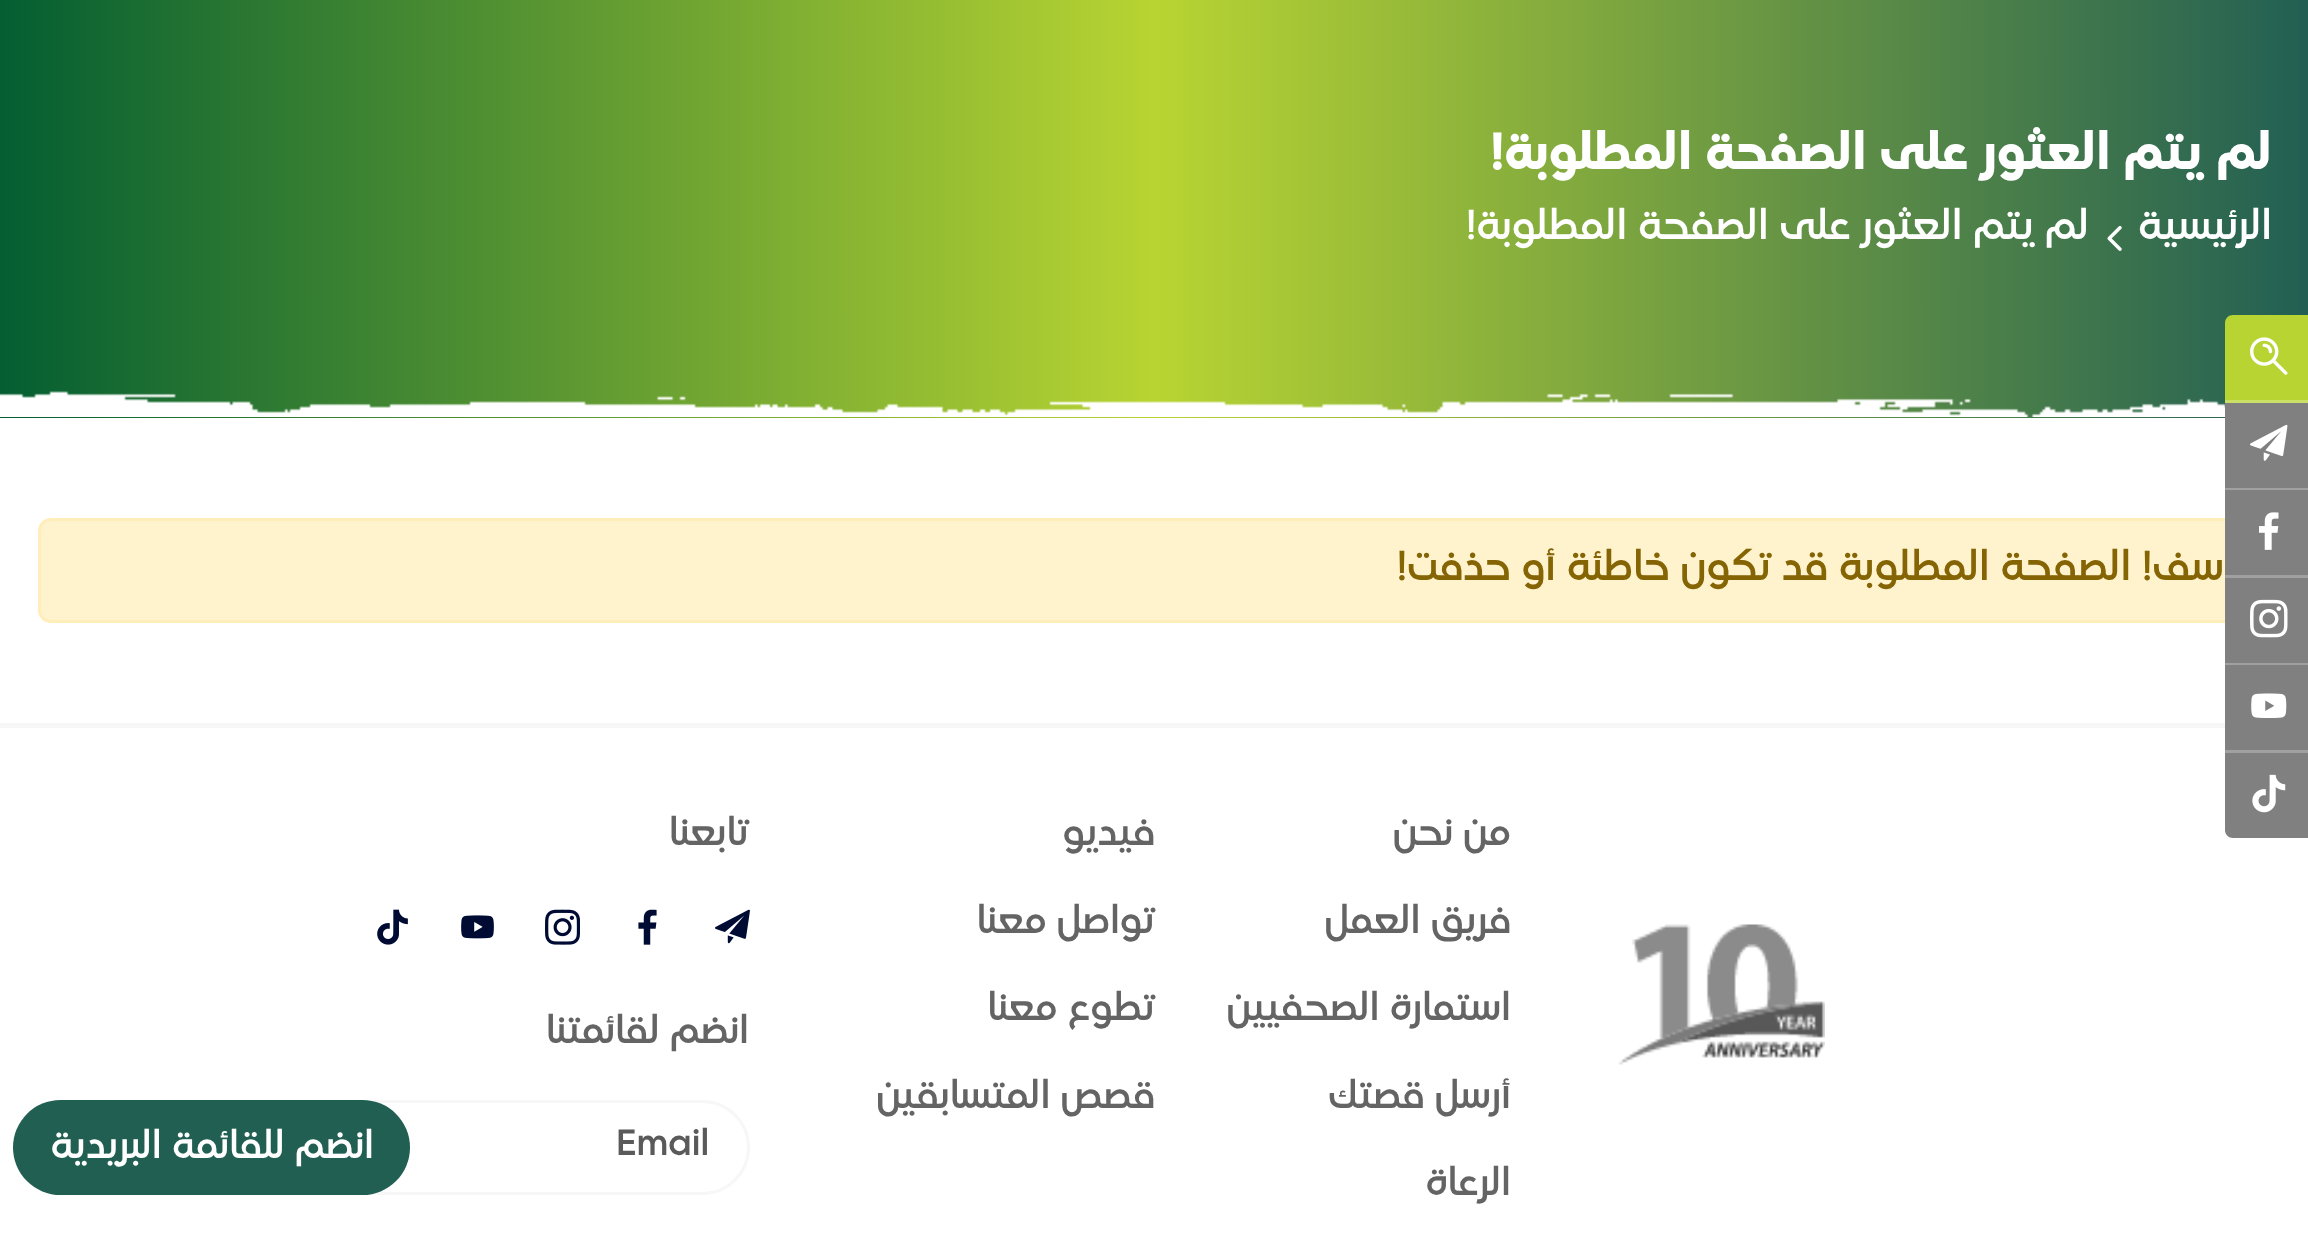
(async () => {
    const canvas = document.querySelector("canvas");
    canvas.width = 2308;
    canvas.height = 1255;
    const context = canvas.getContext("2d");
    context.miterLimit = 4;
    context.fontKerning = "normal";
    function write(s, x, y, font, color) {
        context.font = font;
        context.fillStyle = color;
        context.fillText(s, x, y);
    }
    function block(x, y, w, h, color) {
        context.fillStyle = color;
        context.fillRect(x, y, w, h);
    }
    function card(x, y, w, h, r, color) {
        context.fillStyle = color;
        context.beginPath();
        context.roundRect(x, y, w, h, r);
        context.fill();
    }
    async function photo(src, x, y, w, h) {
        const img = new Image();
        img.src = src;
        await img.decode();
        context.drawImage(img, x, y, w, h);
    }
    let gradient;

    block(0, 0, 2308, 1255, "rgb(255, 255, 255)");
    gradient = context.createLinearGradient(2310, 192, 0, 193);
    gradient.addColorStop(0, "rgb(34, 95, 83)");
    gradient.addColorStop(0.5, "rgb(184, 212, 50)");
    gradient.addColorStop(1, "rgb(4, 94, 50)");
    context.fillStyle = gradient;
    context.fillRect(0, 0, 2308, 418);
    context.fillStyle = "rgb(184, 212, 50)";
    context.beginPath();
    context.moveTo(2233, 315);
    context.lineTo(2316, 315);
    context.lineTo(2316, 403);
    context.lineTo(2225, 403);
    context.lineTo(2225, 323);
    context.bezierCurveTo(2225, 318.5, 2228.5, 315, 2233, 315);
    context.closePath();
    context.fill();
    block(2225, 400, 83, 3, "rgb(202, 223, 101)");
    await photo("media/1.png", 2250, 337, 38, 38);
    block(2225, 403, 83, 85, "rgb(128, 128, 128)");
    block(2225, 488, 83, 2, "rgb(160, 160, 160)");
    await photo("media/2.png", 2250, 424, 38, 37);
    context.fillStyle = "rgb(255, 243, 205)";
    context.beginPath();
    context.roundRect(39.5, 519.5, 2232, 102, 11.5);
    context.fill();
    context.strokeStyle = "rgb(255, 238, 186)";
    context.lineWidth = 3;
    context.stroke();
    context.direction = "rtl";
    write("نأسف! الصفحة المطلوبة قد تكون خاطئة أو حذفت!", 2245, 580, "500 40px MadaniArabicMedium", "rgb(133, 100, 4)");
    block(2225, 490, 83, 85, "rgb(128, 128, 128)");
    block(2225, 575, 83, 3, "rgb(160, 160, 160)");
    await photo("media/3.png", 2259, 512, 20, 38);
    block(2225, 578, 83, 85, "rgb(128, 128, 128)");
    block(2225, 663, 83, 2, "rgb(160, 160, 160)");
    await photo("media/4.png", 2250, 599, 38, 39);
    block(2225, 665, 83, 85, "rgb(128, 128, 128)");
    block(2225, 750, 83, 3, "rgb(160, 160, 160)");
    await photo("media/5.png", 2251, 693, 36, 25);
    context.fillStyle = "rgb(128, 128, 128)";
    context.beginPath();
    context.moveTo(2225, 753);
    context.lineTo(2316, 753);
    context.lineTo(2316, 838);
    context.lineTo(2233, 838);
    context.bezierCurveTo(2228.5, 838, 2225, 834.5, 2225, 830);
    context.closePath();
    context.fill();
    await photo("media/6.png", 2252, 774, 34, 39);
    write("لم يتم العثور على الصفحة المطلوبة!", 2272, 169, "bold 50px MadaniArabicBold", "rgb(255, 255, 255)");
    write("الرئيسية", 2272, 239, "500 40px MadaniArabicMedium", "rgb(255, 255, 255)");
    await photo("media/7.png", 2107, 226, 15, 25);
    write("لم يتم العثور على الصفحة المطلوبة!", 2089, 239, "500 40px MadaniArabicMedium", "rgb(255, 255, 255)");
    await photo("media/8.png", 0, 391, 2225, 26);
    block(0, 723, 2225, 5, "rgb(247, 247, 247)");
    await photo("media/9.png", 1618, 924, 207, 141);
    write("من نحن", 1511, 845, "500 37.5px MadaniArabicMedium", "rgb(100, 100, 100)");
    write("فيديو", 1155, 845, "500 37.5px MadaniArabicMedium", "rgb(100, 100, 100)");
    write("فريق العمل", 1511, 933, "500 37.5px MadaniArabicMedium", "rgb(100, 100, 100)");
    write("تواصل معنا", 1155, 933, "500 37.5px MadaniArabicMedium", "rgb(100, 100, 100)");
    write("استمارة الصحفيين", 1511, 1020, "500 37.5px MadaniArabicMedium", "rgb(100, 100, 100)");
    write("تطوع معنا", 1155, 1020, "500 37.5px MadaniArabicMedium", "rgb(100, 100, 100)");
    write("أرسل قصتك", 1511, 1108, "500 37.5px MadaniArabicMedium", "rgb(100, 100, 100)");
    write("قصص المتسابقين", 1155, 1108, "500 37.5px MadaniArabicMedium", "rgb(100, 100, 100)");
    write("الرعاة", 1511, 1195, "500 37.5px MadaniArabicMedium", "rgb(100, 100, 100)");
    write("تابعنا", 749, 845, "500 37.5px MadaniArabicMedium", "rgb(100, 100, 100)");
    await photo("media/10.png", 715, 909, 35, 35);
    await photo("media/11.png", 638, 909, 19, 36);
    await photo("media/12.png", 545, 909, 35, 36);
    await photo("media/13.png", 461, 915, 33, 24);
    await photo("media/14.png", 377, 909, 31, 36);
    write("انضم لقائمتنا", 749, 1043, "500 37.5px MadaniArabicMedium", "rgb(100, 100, 100)");
    context.beginPath();
    context.roundRect(39.5, 1101.5, 709, 92, 46);
    context.strokeStyle = "rgb(247, 247, 247)";
    context.stroke();
    context.direction = "ltr";
    write("Email", 616, 1155, "500 35px MadaniArabicMedium", "rgb(90, 90, 90)");
    card(13, 1100, 397, 95, 47.5, "rgb(34, 95, 83)");
    context.direction = "rtl";
    write("انضم للقائمة البريدية", 374, 1158, "500 37.5px MadaniArabicMedium", "rgb(255, 255, 255)");
})();
